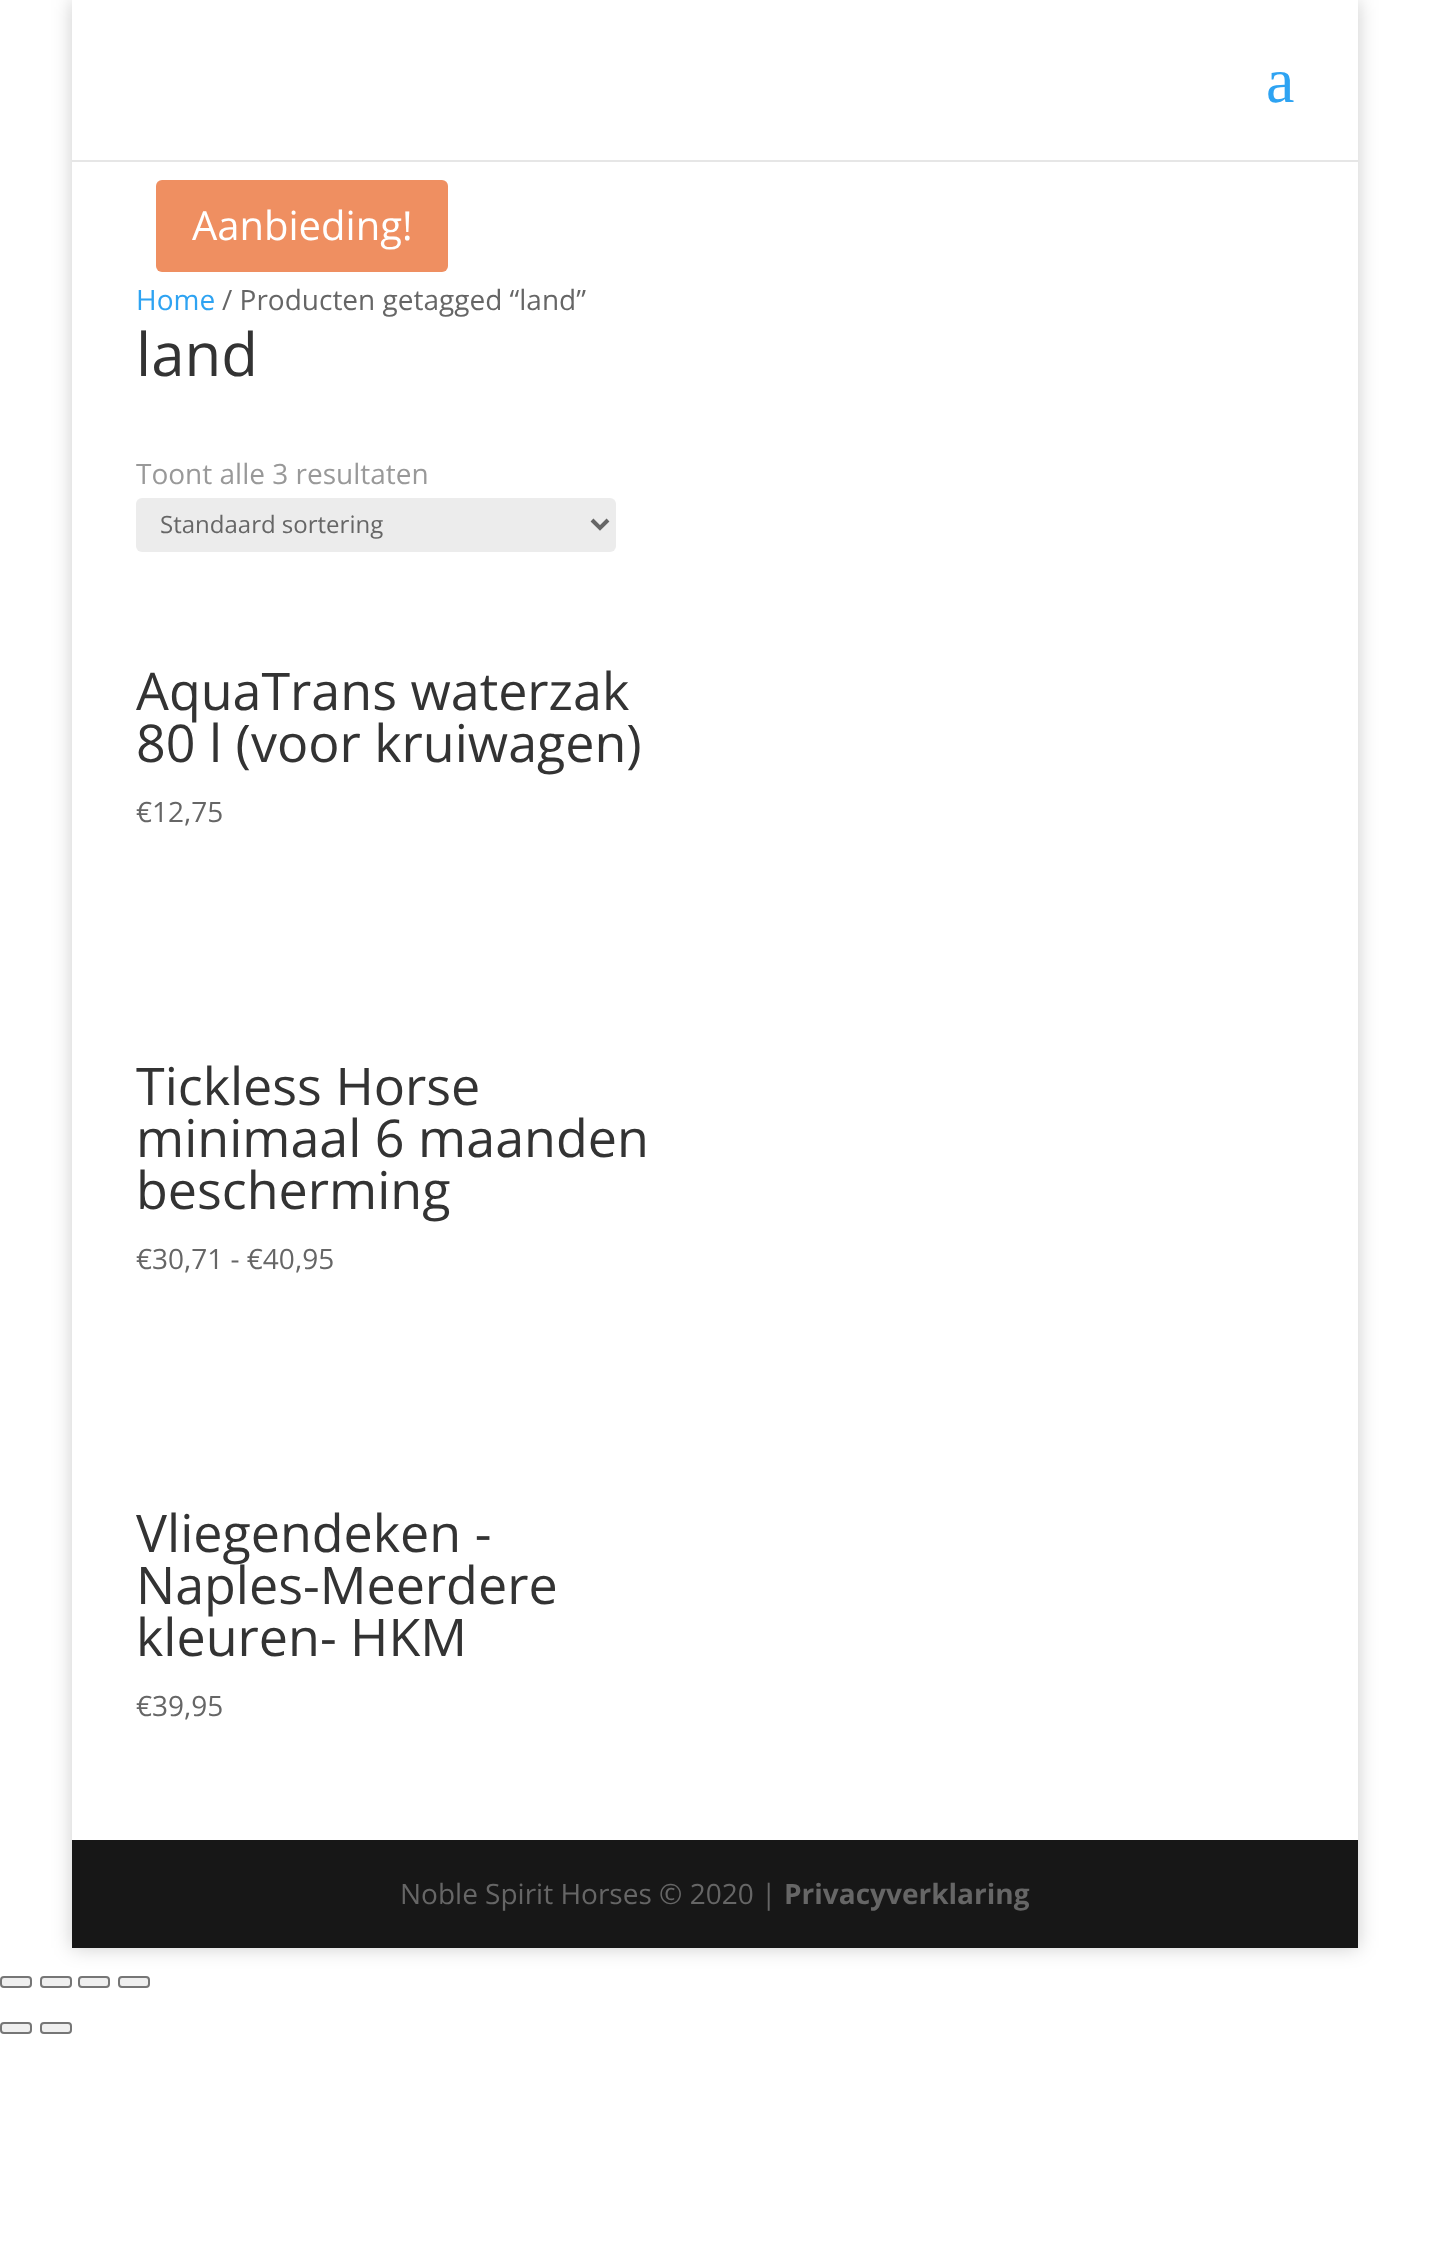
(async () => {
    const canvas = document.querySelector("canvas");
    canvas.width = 1429;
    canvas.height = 2255;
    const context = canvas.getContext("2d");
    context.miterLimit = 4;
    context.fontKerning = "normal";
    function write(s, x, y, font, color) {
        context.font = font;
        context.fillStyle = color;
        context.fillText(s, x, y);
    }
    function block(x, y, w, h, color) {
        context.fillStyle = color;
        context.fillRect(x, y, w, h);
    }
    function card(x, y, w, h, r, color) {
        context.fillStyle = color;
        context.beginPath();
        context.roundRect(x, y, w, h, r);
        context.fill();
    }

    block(0, 0, 1429, 2255, "rgb(255, 255, 255)");
    context.save();
    context.beginPath();
    context.moveTo(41, 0);
    context.lineTo(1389, 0);
    context.lineTo(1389, 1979);
    context.lineTo(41, 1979);
    context.closePath();
    context.moveTo(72, 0);
    context.lineTo(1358, 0);
    context.lineTo(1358, 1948);
    context.lineTo(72, 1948);
    context.closePath();
    context.clip("evenodd");
    context.fillStyle = "rgba(0, 0, 0, 0.2)";
    context.filter = "blur(10px)";
    context.beginPath();
    context.rect(72, 0, 1286, 1948);
    context.fill();
    context.filter = "none";
    context.restore();
    block(72, 160, 1286, 2, "rgb(230, 230, 230)");
    write("a", 1266, 102, "64px Liberation Serif", "rgb(46, 163, 242)");
    card(156, 180, 292, 92, 6, "rgb(239, 143, 97)");
    write("Aanbieding!", 192, 240, "40px Open Sans", "rgb(255, 255, 255)");
    write("Tickless Horse", 136, 1105, "52px Open Sans", "rgb(51, 51, 51)");
    write("minimaal 6 maanden", 136, 1157, "52px Open Sans", "rgb(51, 51, 51)");
    write("bescherming", 136, 1209, "52px Open Sans", "rgb(51, 51, 51)");
    write("€30,71 - €40,95", 136, 1269, "28px Open Sans", "rgb(102, 102, 102)");
    write("AquaTrans waterzak", 136, 710, "52px Open Sans", "rgb(51, 51, 51)");
    write("80 l (voor kruiwagen)", 136, 762, "52px Open Sans", "rgb(51, 51, 51)");
    write("€12,75", 136, 822, "28px Open Sans", "rgb(102, 102, 102)");
    write("Vliegendeken -", 136, 1552, "52px Open Sans", "rgb(51, 51, 51)");
    write("Naples-Meerdere", 136, 1604, "52px Open Sans", "rgb(51, 51, 51)");
    write("kleuren- HKM", 136, 1656, "52px Open Sans", "rgb(51, 51, 51)");
    write("€39,95", 136, 1716, "28px Open Sans", "rgb(102, 102, 102)");
    write("Home", 136, 310, "28px Open Sans", "rgb(46, 163, 242)");
    write("/ Producten getagged “land”", 222, 310, "28px Open Sans", "rgb(102, 102, 102)");
    write("land", 136, 376, "60px Open Sans", "rgb(51, 51, 51)");
    write("Toont alle 3 resultaten", 136, 484, "28px Open Sans", "rgb(153, 153, 153)");
    card(136, 498, 480, 54, 6, "rgb(236, 236, 236)");
    context.beginPath();
    context.moveTo(592, 520);
    context.lineTo(600, 528);
    context.lineTo(608, 520);
    context.strokeStyle = "rgb(102, 102, 102)";
    context.lineWidth = 4;
    context.stroke();
    write("Standaard sortering", 160, 533, "24px Open Sans", "rgb(102, 102, 102)");
    block(72, 1840, 1286, 108, "rgb(23, 23, 23)");
    write("Noble Spirit Horses © 2020 |", 400, 1904, "28px Open Sans", "rgb(102, 102, 102)");
    write("Privacyverklaring", 784, 1904, "bold 28px Open Sans", "rgb(102, 102, 102)");
    context.fillStyle = "rgb(239, 239, 239)";
    context.beginPath();
    context.roundRect(1, 1977, 30, 10, 3);
    context.fill();
    context.strokeStyle = "rgb(118, 118, 118)";
    context.lineWidth = 2;
    context.stroke();
    context.beginPath();
    context.roundRect(41, 1977, 30, 10, 3);
    context.fill();
    context.stroke();
    context.beginPath();
    context.roundRect(79, 1977, 30, 10, 3);
    context.fill();
    context.stroke();
    context.beginPath();
    context.roundRect(119, 1977, 30, 10, 3);
    context.fill();
    context.stroke();
    context.beginPath();
    context.roundRect(1, 2023, 30, 10, 3);
    context.fill();
    context.stroke();
    context.beginPath();
    context.roundRect(41, 2023, 30, 10, 3);
    context.fill();
    context.stroke();
})();
